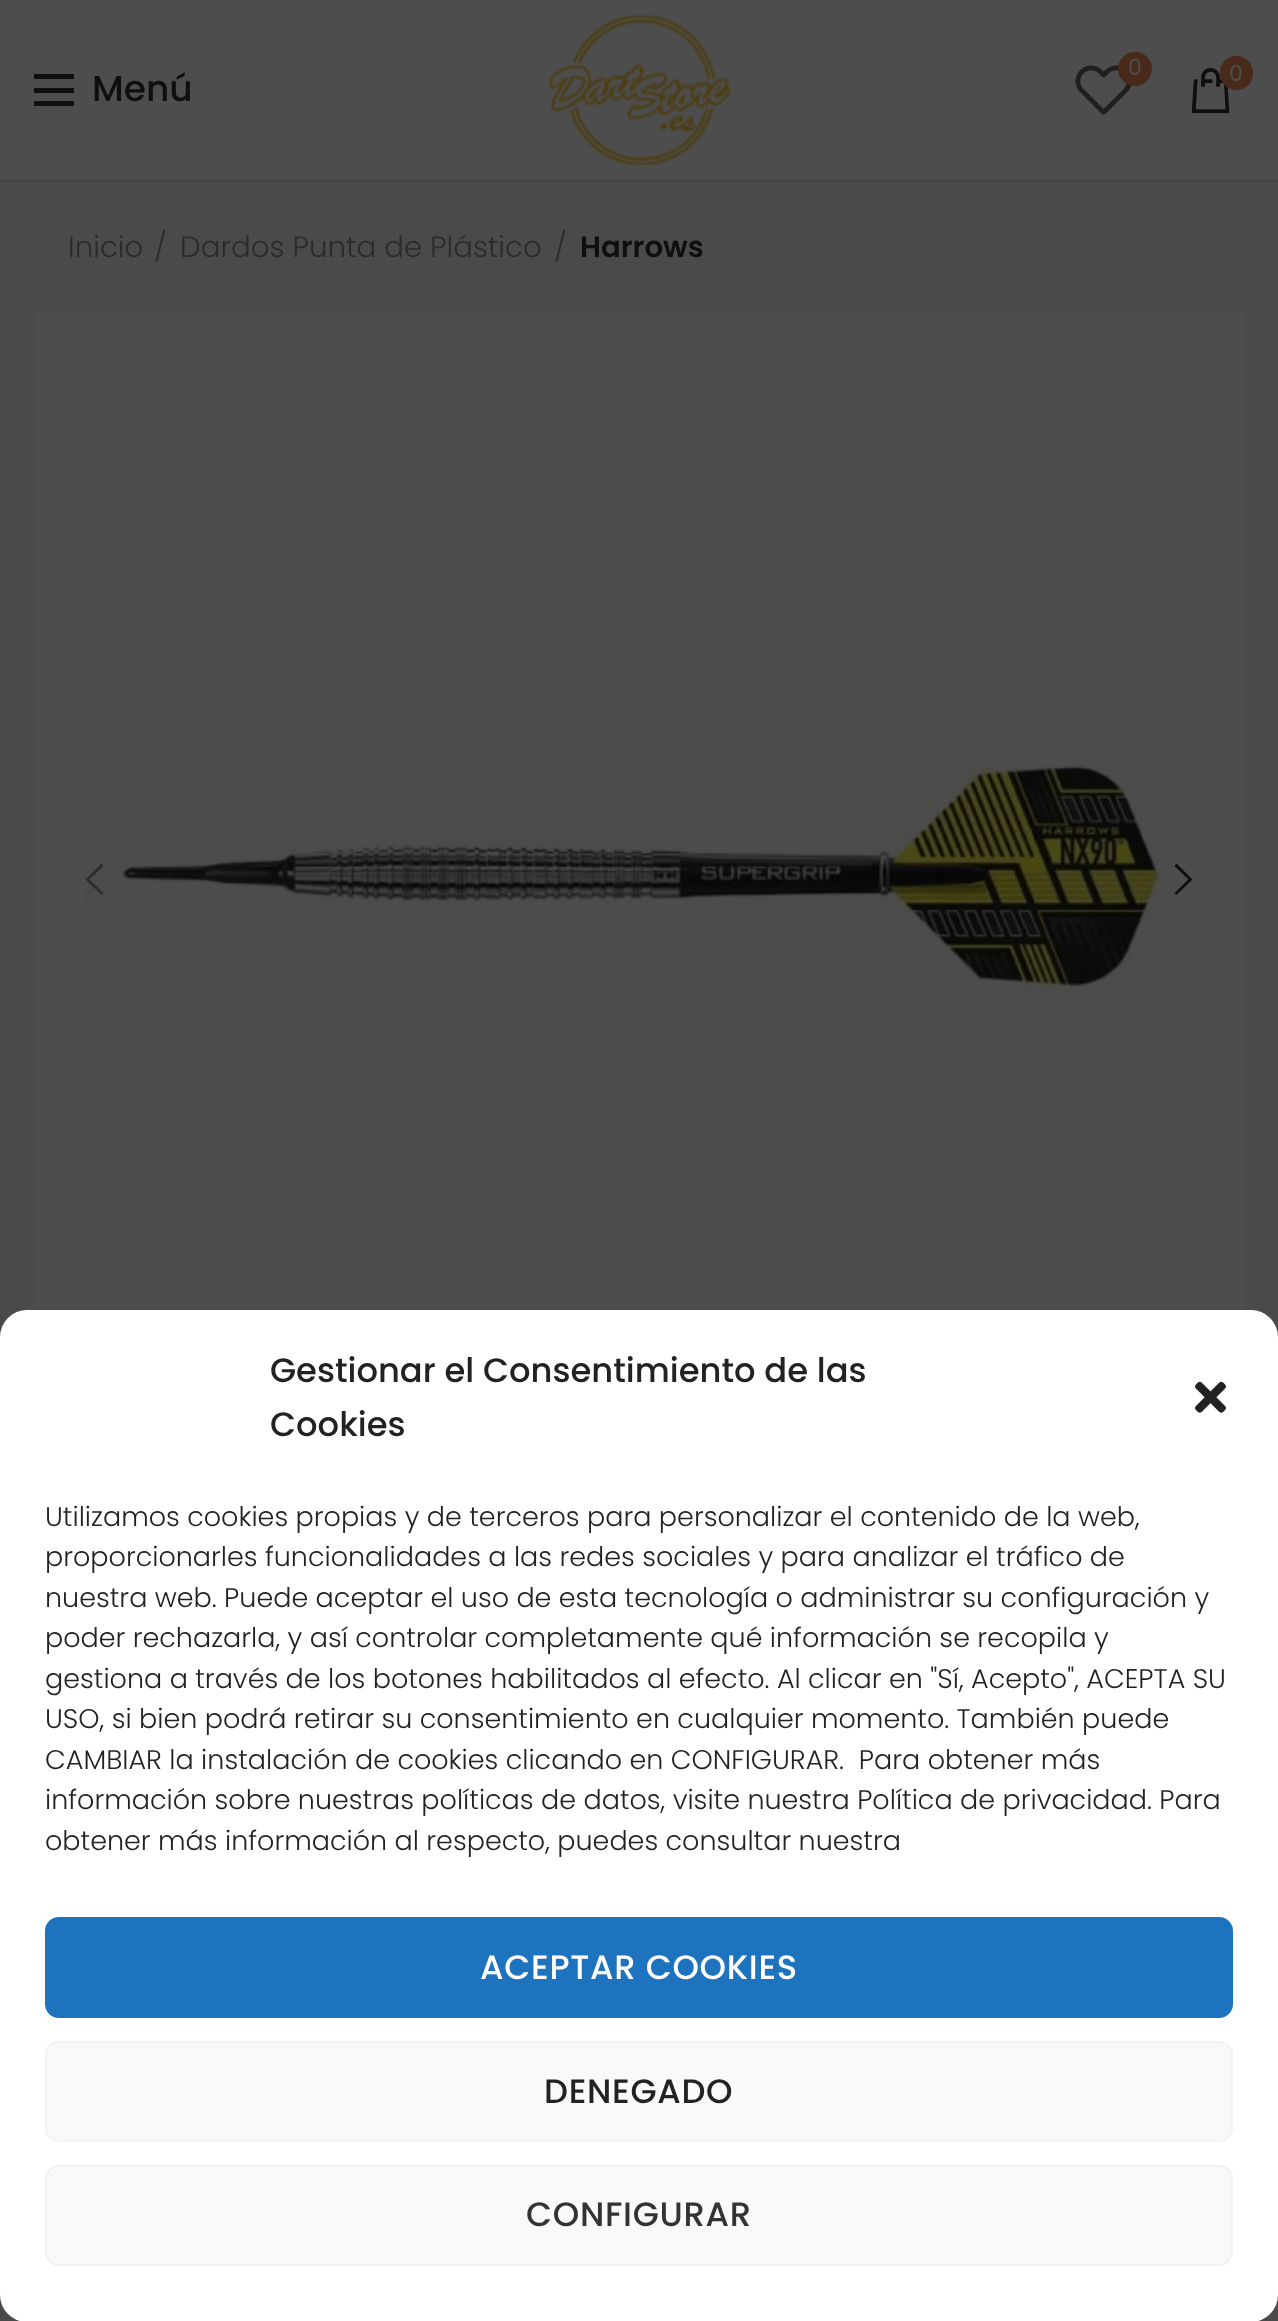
(async () => {
    const canvas = document.querySelector("canvas");
    canvas.width = 1278;
    canvas.height = 2321;
    const context = canvas.getContext("2d");
    context.miterLimit = 4;
    context.fontKerning = "normal";
    function write(s, x, y, font, color) {
        context.font = font;
        context.fillStyle = color;
        context.fillText(s, x, y);
    }
    function block(x, y, w, h, color) {
        context.fillStyle = color;
        context.fillRect(x, y, w, h);
    }
    function card(x, y, w, h, r, color) {
        context.fillStyle = color;
        context.beginPath();
        context.roundRect(x, y, w, h, r);
        context.fill();
    }
    async function photo(src, x, y, w, h) {
        const img = new Image();
        img.src = src;
        await img.decode();
        context.drawImage(img, x, y, w, h);
    }

    block(0, 0, 1278, 2321, "rgb(77, 77, 77)");
    block(0, 180, 1278, 2, "rgb(69, 69, 69)");
    await photo("media/1.png", 548, 14, 183, 153);
    await photo("media/2.png", 1075, 65, 57, 50);
    context.fillStyle = "rgb(73, 41, 25)";
    context.beginPath();
    context.arc(1135, 69, 17, 0, Math.PI * 2);
    context.fill();
    write("0", 1128, 75, "22px Poppins", "rgb(77, 77, 77)");
    await photo("media/3.png", 1191, 68, 39, 46);
    card(1220, 56, 33, 34, 16.5, "rgb(73, 41, 25)");
    write("0", 1229, 81, "22px Poppins", "rgb(77, 77, 77)");
    block(34, 88, 40, 5, "rgb(15, 15, 15)");
    block(34, 74, 40, 5, "rgb(15, 15, 15)");
    block(34, 101, 40, 5, "rgb(15, 15, 15)");
    write("Menú", 92, 101, "500 36px Poppins", "rgb(15, 15, 15)");
    block(0, 182, 1278, 2139, "rgb(74, 74, 74)");
    write("Inicio", 68, 257, "300 29.25px Poppins", "rgb(43, 43, 43)");
    write("/", 154, 257, "300 29.25px Poppins", "rgb(43, 43, 43)");
    write("Dardos Punta de Plástico", 180, 257, "300 29.25px Poppins", "rgb(43, 43, 43)");
    write("/", 554, 257, "300 29.25px Poppins", "rgb(43, 43, 43)");
    write("Harrows", 580, 257, "600 29.25px Poppins", "rgb(15, 15, 15)");
    block(34, 313, 1210, 997, "rgb(77, 77, 77)");
    await photo("media/4.png", 85, 764, 1078, 246);
    context.fillStyle = "rgba(0, 0, 0, 0.4)";
    context.beginPath();
    context.moveTo(103.5, 866);
    context.lineTo(89.5, 879.5);
    context.lineTo(103.5, 893);
    context.lineTo(101.5, 895);
    context.lineTo(85.5, 879.5);
    context.lineTo(101.5, 863.5);
    context.closePath();
    context.fill();
    context.fillStyle = "rgb(15, 15, 15)";
    context.beginPath();
    context.moveTo(1176.5, 863.5);
    context.lineTo(1192.5, 879.5);
    context.lineTo(1176.5, 895);
    context.lineTo(1174.5, 893);
    context.lineTo(1188.5, 879.5);
    context.lineTo(1174.5, 866);
    context.closePath();
    context.fill();
    context.fillStyle = "rgb(38, 38, 38)";
    context.filter = "blur(5.5px)";
    context.beginPath();
    context.roundRect(1121, 2156, 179, 135, 5);
    context.fill();
    context.filter = "none";
    card(0, 1310, 1278, 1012, 27, "rgb(255, 255, 255)");
    write("Gestionar el Consentimiento de las", 270, 1382, "500 33.75px Poppins", "rgb(34, 34, 34)");
    write("Cookies", 270, 1436, "500 33.75px Poppins", "rgb(34, 34, 34)");
    await photo("media/5.png", 1195, 1381, 31, 32);
    write("Utilizamos cookies propias y de terceros para personalizar el contenido de la web,", 45, 1526, "300 27px Poppins", "rgb(34, 34, 34)");
    write("proporcionarles funcionalidades a las redes sociales y para analizar el tráfico de", 45, 1566, "300 27px Poppins", "rgb(34, 34, 34)");
    write("nuestra web. Puede aceptar el uso de esta tecnología o administrar su configuración y", 45, 1607, "300 27px Poppins", "rgb(34, 34, 34)");
    write("poder rechazarla, y así controlar completamente qué información se recopila y", 45, 1647, "300 27px Poppins", "rgb(34, 34, 34)");
    write("gestiona a través de los botones habilitados al efecto. Al clicar en \"Sí, Acepto\", ACEPTA SU", 45, 1688, "300 27px Poppins", "rgb(34, 34, 34)");
    write("USO, si bien podrá retirar su consentimiento en cualquier momento. También puede", 45, 1728, "300 27px Poppins", "rgb(34, 34, 34)");
    write("CAMBIAR la instalación de cookies clicando en CONFIGURAR.  Para obtener más", 45, 1769, "300 27px Poppins", "rgb(34, 34, 34)");
    write("información sobre nuestras políticas de datos, visite nuestra Política de privacidad. Para", 45, 1809, "300 27px Poppins", "rgb(34, 34, 34)");
    write("obtener más información al respecto, puedes consultar nuestra", 45, 1850, "300 27px Poppins", "rgb(34, 34, 34)");
    context.fillStyle = "rgb(30, 115, 190)";
    context.beginPath();
    context.roundRect(46, 1918, 1186, 99, 13);
    context.fill();
    context.strokeStyle = "rgb(30, 115, 190)";
    context.lineWidth = 2;
    context.stroke();
    context.letterSpacing = "0.7px";
    write("ACEPTAR COOKIES", 480, 1979, "500 33.75px Poppins", "rgb(255, 255, 255)");
    context.fillStyle = "rgb(249, 249, 249)";
    context.beginPath();
    context.roundRect(46, 2042, 1186, 99, 13);
    context.fill();
    context.strokeStyle = "rgb(242, 242, 242)";
    context.stroke();
    write("DENEGADO", 544, 2103, "500 33.75px Poppins", "rgb(34, 34, 34)");
    context.fillStyle = "rgb(249, 249, 249)";
    context.beginPath();
    context.roundRect(46, 2166, 1186, 99, 13);
    context.fill();
    context.stroke();
    write("CONFIGURAR", 526, 2226, "500 33.75px Poppins", "rgb(51, 51, 51)");
})();
